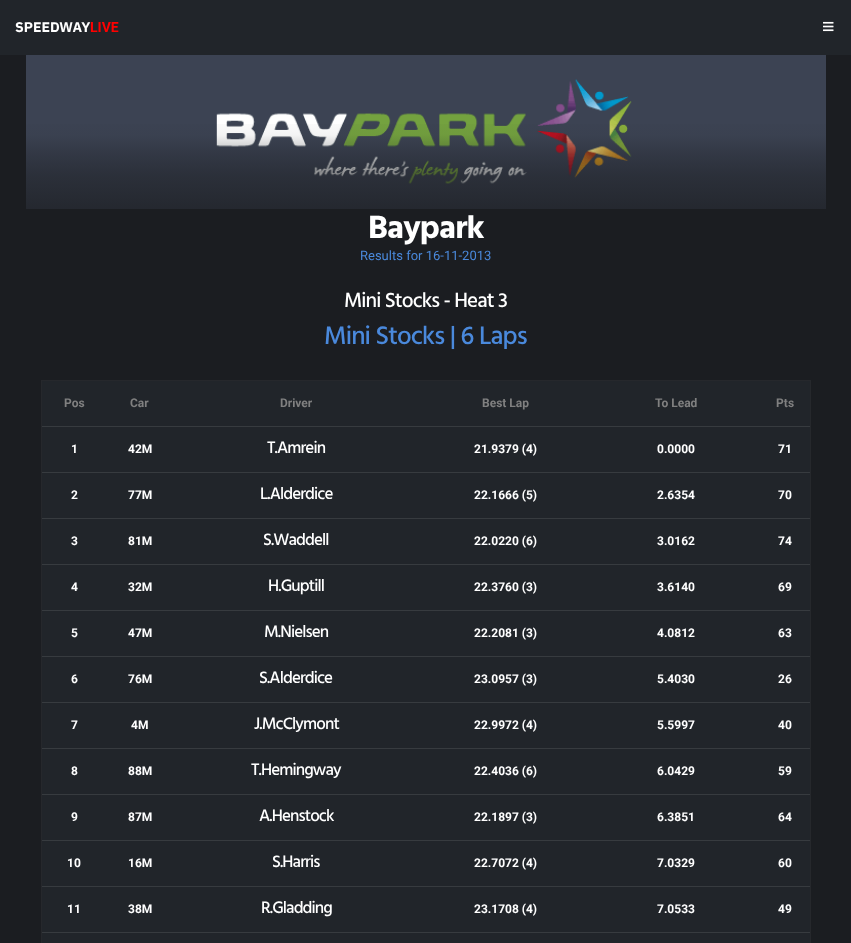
(async () => {
    const canvas = document.querySelector("canvas");
    canvas.width = 851;
    canvas.height = 943;
    const context = canvas.getContext("2d");
    context.miterLimit = 4;
    context.fontKerning = "normal";
    function write(s, x, y, font, color) {
        context.font = font;
        context.fillStyle = color;
        context.fillText(s, x, y);
    }
    function block(x, y, w, h, color) {
        context.fillStyle = color;
        context.fillRect(x, y, w, h);
    }
    async function photo(src, x, y, w, h) {
        const img = new Image();
        img.src = src;
        await img.decode();
        context.drawImage(img, x, y, w, h);
    }
    let gradient;

    block(0, 0, 851, 943, "rgb(27, 29, 33)");
    block(0, 0, 851, 55, "rgb(33, 37, 42)");
    write("SPEEDWAY", 15, 32, "bold 14px IBM Plex Sans", "rgb(255, 255, 255)");
    write("LIVE", 90, 32, "bold 14px Roboto", "rgb(255, 0, 0)");
    await photo("media/1.png", 823, 21, 11, 11);
    await photo("media/2.png", 26, 55, 800, 154);
    gradient = context.createLinearGradient(426, 55, 426, 255);
    gradient.addColorStop(0, "rgba(27, 29, 33, 0)");
    gradient.addColorStop(0.3, "rgba(27, 29, 33, 0)");
    gradient.addColorStop(0.4, "rgba(27, 29, 33, 0.05)");
    gradient.addColorStop(0.5, "rgba(27, 29, 33, 0.3)");
    gradient.addColorStop(0.6, "rgba(27, 29, 33, 0.5)");
    gradient.addColorStop(1, "rgb(27, 29, 33)");
    context.fillStyle = gradient;
    context.fillRect(26, 124, 800, 85);
    context.letterSpacing = "-0.9px";
    write("Baypark", 368, 238, "bold 33px Hind", "rgb(255, 255, 255)");
    context.letterSpacing = "0px";
    write("Results for 16-11-2013", 360, 260, "13px Roboto", "rgb(74, 137, 220)");
    context.letterSpacing = "-0.9px";
    write("Mini Stocks - Heat 3", 344, 307, "500 21px Hind", "rgb(255, 255, 255)");
    write("Mini Stocks | 6 Laps", 324, 344, "500 26px Hind", "rgb(74, 137, 220)");
    context.strokeStyle = "rgb(38, 40, 44)";
    context.strokeRect(41.5, 380.5, 769, 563);
    block(42, 381, 768, 45, "rgb(33, 37, 42)");
    block(42, 426, 768, 1, "rgb(55, 59, 63)");
    context.letterSpacing = "0px";
    write("Pos", 64, 407, "bold 12px Roboto", "rgb(128, 128, 128)");
    write("Car", 130, 407, "bold 12px Roboto", "rgb(128, 128, 128)");
    write("Driver", 280, 407, "bold 12px Roboto", "rgb(128, 128, 128)");
    write("Best Lap", 482, 407, "bold 12px Roboto", "rgb(128, 128, 128)");
    write("To Lead", 655, 407, "bold 12px Roboto", "rgb(128, 128, 128)");
    write("Pts", 776, 407, "bold 12px Roboto", "rgb(128, 128, 128)");
    block(42, 427, 768, 45, "rgb(33, 37, 42)");
    block(42, 472, 768, 1, "rgb(55, 59, 63)");
    write("1", 71, 453, "bold 12px Roboto", "rgb(255, 255, 255)");
    write("42M", 128, 453, "bold 12px Roboto", "rgb(255, 255, 255)");
    context.letterSpacing = "-0.9px";
    write("T.Amrein", 267, 453, "500 17px Hind", "rgb(255, 255, 255)");
    context.letterSpacing = "0px";
    write("21.9379 (4)", 474, 453, "bold 12px Roboto", "rgb(255, 255, 255)");
    write("0.0000", 657, 453, "bold 12px Roboto", "rgb(255, 255, 255)");
    write("71", 778, 453, "bold 12px Roboto", "rgb(255, 255, 255)");
    block(42, 473, 768, 45, "rgb(33, 37, 42)");
    block(42, 518, 768, 1, "rgb(55, 59, 63)");
    write("2", 71, 499, "bold 12px Roboto", "rgb(255, 255, 255)");
    write("77M", 128, 499, "bold 12px Roboto", "rgb(255, 255, 255)");
    context.letterSpacing = "-0.9px";
    write("L.Alderdice", 260, 499, "500 17px Hind", "rgb(255, 255, 255)");
    context.letterSpacing = "0px";
    write("22.1666 (5)", 474, 499, "bold 12px Roboto", "rgb(255, 255, 255)");
    write("2.6354", 657, 499, "bold 12px Roboto", "rgb(255, 255, 255)");
    write("70", 778, 499, "bold 12px Roboto", "rgb(255, 255, 255)");
    block(42, 519, 768, 45, "rgb(33, 37, 42)");
    block(42, 564, 768, 1, "rgb(55, 59, 63)");
    write("3", 71, 545, "bold 12px Roboto", "rgb(255, 255, 255)");
    write("81M", 128, 545, "bold 12px Roboto", "rgb(255, 255, 255)");
    context.letterSpacing = "-0.9px";
    write("S.Waddell", 263, 545, "500 17px Hind", "rgb(255, 255, 255)");
    context.letterSpacing = "0px";
    write("22.0220 (6)", 474, 545, "bold 12px Roboto", "rgb(255, 255, 255)");
    write("3.0162", 657, 545, "bold 12px Roboto", "rgb(255, 255, 255)");
    write("74", 778, 545, "bold 12px Roboto", "rgb(255, 255, 255)");
    block(42, 565, 768, 45, "rgb(33, 37, 42)");
    block(42, 610, 768, 1, "rgb(55, 59, 63)");
    write("4", 71, 591, "bold 12px Roboto", "rgb(255, 255, 255)");
    write("32M", 128, 591, "bold 12px Roboto", "rgb(255, 255, 255)");
    context.letterSpacing = "-0.9px";
    write("H.Guptill", 268, 591, "500 17px Hind", "rgb(255, 255, 255)");
    context.letterSpacing = "0px";
    write("22.3760 (3)", 474, 591, "bold 12px Roboto", "rgb(255, 255, 255)");
    write("3.6140", 657, 591, "bold 12px Roboto", "rgb(255, 255, 255)");
    write("69", 778, 591, "bold 12px Roboto", "rgb(255, 255, 255)");
    block(42, 611, 768, 45, "rgb(33, 37, 42)");
    block(42, 656, 768, 1, "rgb(55, 59, 63)");
    write("5", 71, 637, "bold 12px Roboto", "rgb(255, 255, 255)");
    write("47M", 128, 637, "bold 12px Roboto", "rgb(255, 255, 255)");
    context.letterSpacing = "-0.9px";
    write("M.Nielsen", 264, 637, "500 17px Hind", "rgb(255, 255, 255)");
    context.letterSpacing = "0px";
    write("22.2081 (3)", 474, 637, "bold 12px Roboto", "rgb(255, 255, 255)");
    write("4.0812", 657, 637, "bold 12px Roboto", "rgb(255, 255, 255)");
    write("63", 778, 637, "bold 12px Roboto", "rgb(255, 255, 255)");
    block(42, 657, 768, 45, "rgb(33, 37, 42)");
    block(42, 702, 768, 1, "rgb(55, 59, 63)");
    write("6", 71, 683, "bold 12px Roboto", "rgb(255, 255, 255)");
    write("76M", 128, 683, "bold 12px Roboto", "rgb(255, 255, 255)");
    context.letterSpacing = "-0.9px";
    write("S.Alderdice", 259, 683, "500 17px Hind", "rgb(255, 255, 255)");
    context.letterSpacing = "0px";
    write("23.0957 (3)", 474, 683, "bold 12px Roboto", "rgb(255, 255, 255)");
    write("5.4030", 657, 683, "bold 12px Roboto", "rgb(255, 255, 255)");
    write("26", 778, 683, "bold 12px Roboto", "rgb(255, 255, 255)");
    block(42, 703, 768, 45, "rgb(33, 37, 42)");
    block(42, 748, 768, 1, "rgb(55, 59, 63)");
    write("7", 71, 729, "bold 12px Roboto", "rgb(255, 255, 255)");
    write("4M", 131, 729, "bold 12px Roboto", "rgb(255, 255, 255)");
    context.letterSpacing = "-0.9px";
    write("J.McClymont", 254, 729, "500 17px Hind", "rgb(255, 255, 255)");
    context.letterSpacing = "0px";
    write("22.9972 (4)", 474, 729, "bold 12px Roboto", "rgb(255, 255, 255)");
    write("5.5997", 657, 729, "bold 12px Roboto", "rgb(255, 255, 255)");
    write("40", 778, 729, "bold 12px Roboto", "rgb(255, 255, 255)");
    block(42, 749, 768, 45, "rgb(33, 37, 42)");
    block(42, 794, 768, 1, "rgb(55, 59, 63)");
    write("8", 71, 775, "bold 12px Roboto", "rgb(255, 255, 255)");
    write("88M", 128, 775, "bold 12px Roboto", "rgb(255, 255, 255)");
    context.letterSpacing = "-0.9px";
    write("T.Hemingway", 251, 775, "500 17px Hind", "rgb(255, 255, 255)");
    context.letterSpacing = "0px";
    write("22.4036 (6)", 474, 775, "bold 12px Roboto", "rgb(255, 255, 255)");
    write("6.0429", 657, 775, "bold 12px Roboto", "rgb(255, 255, 255)");
    write("59", 778, 775, "bold 12px Roboto", "rgb(255, 255, 255)");
    block(42, 795, 768, 45, "rgb(33, 37, 42)");
    block(42, 840, 768, 1, "rgb(55, 59, 63)");
    write("9", 71, 821, "bold 12px Roboto", "rgb(255, 255, 255)");
    write("87M", 128, 821, "bold 12px Roboto", "rgb(255, 255, 255)");
    context.letterSpacing = "-0.9px";
    write("A.Henstock", 259, 821, "500 17px Hind", "rgb(255, 255, 255)");
    context.letterSpacing = "0px";
    write("22.1897 (3)", 474, 821, "bold 12px Roboto", "rgb(255, 255, 255)");
    write("6.3851", 657, 821, "bold 12px Roboto", "rgb(255, 255, 255)");
    write("64", 778, 821, "bold 12px Roboto", "rgb(255, 255, 255)");
    block(42, 841, 768, 45, "rgb(33, 37, 42)");
    block(42, 886, 768, 1, "rgb(55, 59, 63)");
    write("10", 67, 867, "bold 12px Roboto", "rgb(255, 255, 255)");
    write("16M", 128, 867, "bold 12px Roboto", "rgb(255, 255, 255)");
    context.letterSpacing = "-0.9px";
    write("S.Harris", 272, 867, "500 17px Hind", "rgb(255, 255, 255)");
    context.letterSpacing = "0px";
    write("22.7072 (4)", 474, 867, "bold 12px Roboto", "rgb(255, 255, 255)");
    write("7.0329", 657, 867, "bold 12px Roboto", "rgb(255, 255, 255)");
    write("60", 778, 867, "bold 12px Roboto", "rgb(255, 255, 255)");
    block(42, 887, 768, 45, "rgb(33, 37, 42)");
    block(42, 932, 768, 1, "rgb(55, 59, 63)");
    write("11", 67, 913, "bold 12px Roboto", "rgb(255, 255, 255)");
    write("38M", 128, 913, "bold 12px Roboto", "rgb(255, 255, 255)");
    context.letterSpacing = "-0.9px";
    write("R.Gladding", 261, 913, "500 17px Hind", "rgb(255, 255, 255)");
    context.letterSpacing = "0px";
    write("23.1708 (4)", 474, 913, "bold 12px Roboto", "rgb(255, 255, 255)");
    write("7.0533", 657, 913, "bold 12px Roboto", "rgb(255, 255, 255)");
    write("49", 778, 913, "bold 12px Roboto", "rgb(255, 255, 255)");
    block(42, 933, 768, 10, "rgb(33, 37, 42)");
})();
